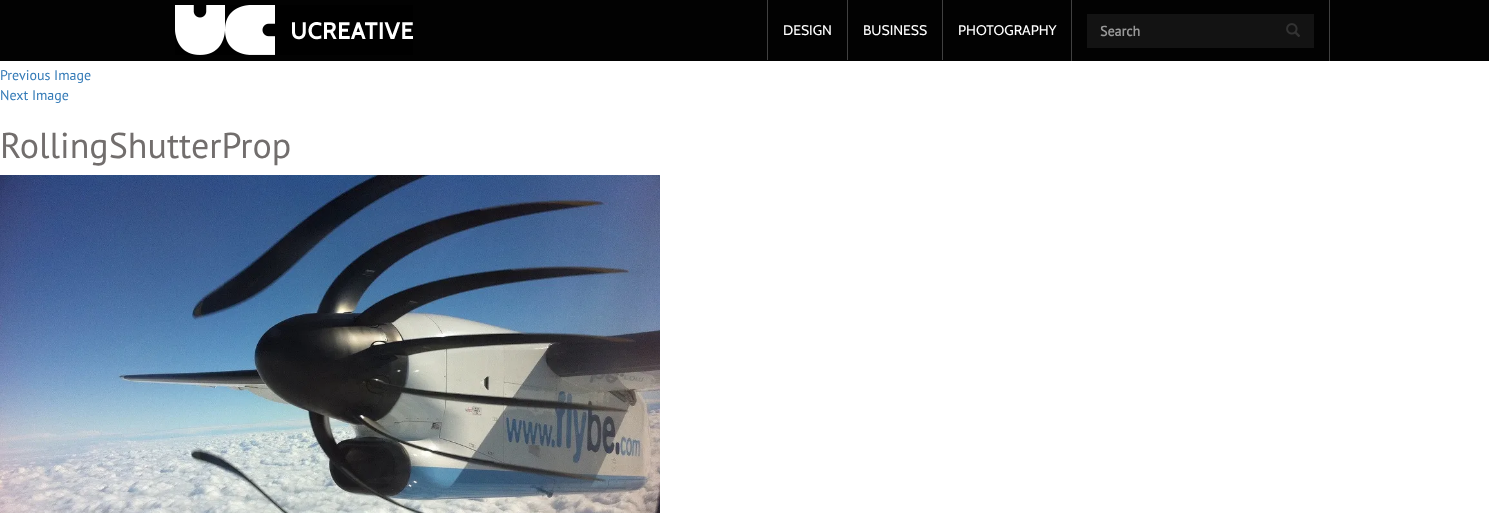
(async () => {
    const canvas = document.querySelector("canvas");
    canvas.width = 1489;
    canvas.height = 513;
    const context = canvas.getContext("2d");
    context.miterLimit = 4;
    context.fontKerning = "normal";
    function write(s, x, y, font, color) {
        context.font = font;
        context.fillStyle = color;
        context.fillText(s, x, y);
    }
    function block(x, y, w, h, color) {
        context.fillStyle = color;
        context.fillRect(x, y, w, h);
    }
    async function photo(src, x, y, w, h) {
        const img = new Image();
        img.src = src;
        await img.decode();
        context.drawImage(img, x, y, w, h);
    }

    block(0, 0, 1489, 513, "rgb(255, 255, 255)");
    block(0, 0, 1489, 61, "rgb(2, 2, 2)");
    block(175, 5, 238, 50, "rgb(255, 255, 255)");
    await photo("media/1.png", 175, 5, 238, 50);
    block(1329, 0, 1, 61, "rgb(64, 64, 64)");
    block(767, 0, 1, 60, "rgb(64, 64, 64)");
    write("DESIGN", 783, 35, "14px Cabin", "rgb(255, 255, 255)");
    block(847, 0, 1, 60, "rgb(64, 64, 64)");
    write("BUSINESS", 863, 35, "14px Cabin", "rgb(255, 255, 255)");
    block(942, 0, 1, 60, "rgb(64, 64, 64)");
    write("PHOTOGRAPHY", 958, 35, "14px Cabin", "rgb(255, 255, 255)");
    block(1071, 0, 1, 61, "rgb(64, 64, 64)");
    block(1087, 14, 227, 34, "rgb(19, 19, 19)");
    await photo("media/2.png", 1286, 23, 14, 14);
    write("Search", 1100, 36, "bold 14px PT Sans", "rgb(153, 153, 153)");
    write("Previous Image", 0, 80, "14px PT Sans", "rgb(51, 122, 183)");
    write("Next Image", 0, 100, "14px PT Sans", "rgb(51, 122, 183)");
    write("RollingShutterProp", 0, 158, "36px PT Sans", "rgb(114, 110, 109)");
    await photo("media/3.png", 0, 175, 660, 338);
})();
